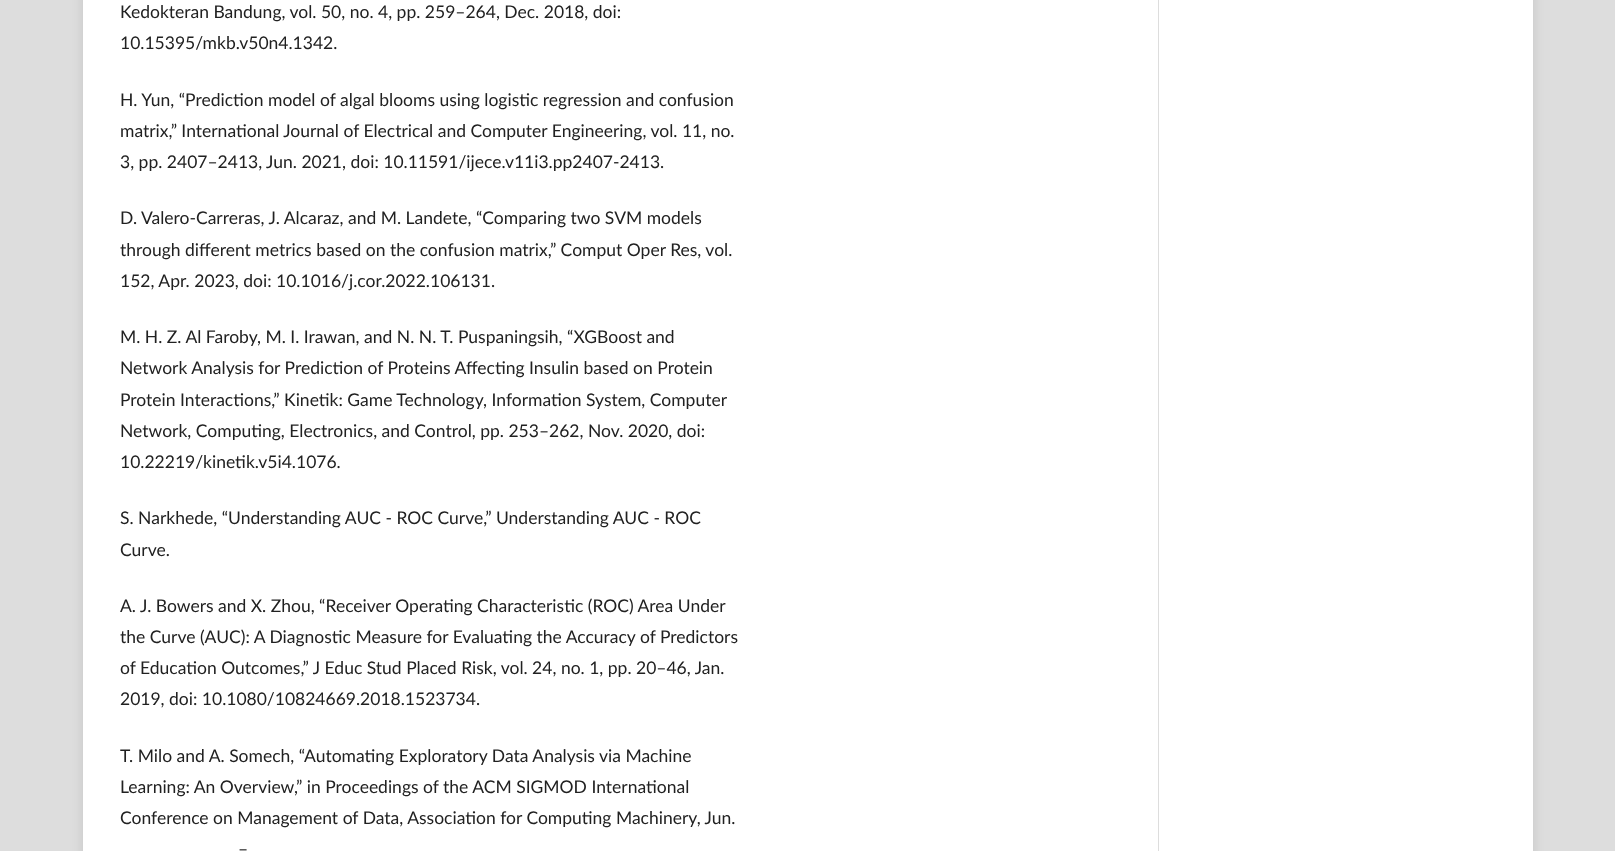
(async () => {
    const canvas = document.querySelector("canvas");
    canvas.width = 1615;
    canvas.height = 851;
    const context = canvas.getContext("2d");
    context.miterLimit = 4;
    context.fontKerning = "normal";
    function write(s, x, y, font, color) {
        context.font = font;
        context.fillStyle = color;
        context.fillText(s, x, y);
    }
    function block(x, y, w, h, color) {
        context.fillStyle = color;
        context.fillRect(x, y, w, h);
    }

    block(0, 0, 1615, 851, "rgb(221, 221, 221)");
    context.fillStyle = "rgba(0, 0, 0, 0.1)";
    context.filter = "blur(6px)";
    context.beginPath();
    context.rect(83, -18, 1450, 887);
    context.fill();
    context.filter = "none";
    block(83, 0, 1450, 851, "rgb(255, 255, 255)");
    write("Kedokteran Bandung, vol. 50, no. 4, pp. 259–264, Dec. 2018, doi:", 120, 18, "17.5px Lato", "rgb(33, 33, 33)");
    write("10.15395/mkb.v50n4.1342.", 120, 49, "17.5px Lato", "rgb(33, 33, 33)");
    write("H. Yun, “Prediction model of algal blooms using logistic regression and confusion", 120, 106, "17.5px Lato", "rgb(33, 33, 33)");
    write("matrix,” International Journal of Electrical and Computer Engineering, vol. 11, no.", 120, 137, "17.5px Lato", "rgb(33, 33, 33)");
    write("3, pp. 2407–2413, Jun. 2021, doi: 10.11591/ijece.v11i3.pp2407-2413.", 120, 168, "17.5px Lato", "rgb(33, 33, 33)");
    write("D. Valero-Carreras, J. Alcaraz, and M. Landete, “Comparing two SVM models", 120, 224, "17.5px Lato", "rgb(33, 33, 33)");
    write("through different metrics based on the confusion matrix,” Comput Oper Res, vol.", 120, 256, "17.5px Lato", "rgb(33, 33, 33)");
    write("152, Apr. 2023, doi: 10.1016/j.cor.2022.106131.", 120, 287, "17.5px Lato", "rgb(33, 33, 33)");
    write("M. H. Z. Al Faroby, M. I. Irawan, and N. N. T. Puspaningsih, “XGBoost and", 120, 343, "17.5px Lato", "rgb(33, 33, 33)");
    write("Network Analysis for Prediction of Proteins Affecting Insulin based on Protein", 120, 374, "17.5px Lato", "rgb(33, 33, 33)");
    write("Protein Interactions,” Kinetik: Game Technology, Information System, Computer", 120, 406, "17.5px Lato", "rgb(33, 33, 33)");
    write("Network, Computing, Electronics, and Control, pp. 253–262, Nov. 2020, doi:", 120, 437, "17.5px Lato", "rgb(33, 33, 33)");
    write("10.22219/kinetik.v5i4.1076.", 120, 468, "17.5px Lato", "rgb(33, 33, 33)");
    write("S. Narkhede, “Understanding AUC - ROC Curve,” Understanding AUC - ROC", 120, 524, "17.5px Lato", "rgb(33, 33, 33)");
    write("Curve.", 120, 556, "17.5px Lato", "rgb(33, 33, 33)");
    write("A. J. Bowers and X. Zhou, “Receiver Operating Characteristic (ROC) Area Under", 120, 612, "17.5px Lato", "rgb(33, 33, 33)");
    write("the Curve (AUC): A Diagnostic Measure for Evaluating the Accuracy of Predictors", 120, 643, "17.5px Lato", "rgb(33, 33, 33)");
    write("of Education Outcomes,” J Educ Stud Placed Risk, vol. 24, no. 1, pp. 20–46, Jan.", 120, 674, "17.5px Lato", "rgb(33, 33, 33)");
    write("2019, doi: 10.1080/10824669.2018.1523734.", 120, 705, "17.5px Lato", "rgb(33, 33, 33)");
    write("T. Milo and A. Somech, “Automating Exploratory Data Analysis via Machine", 120, 762, "17.5px Lato", "rgb(33, 33, 33)");
    write("Learning: An Overview,” in Proceedings of the ACM SIGMOD International", 120, 793, "17.5px Lato", "rgb(33, 33, 33)");
    write("Conference on Management of Data, Association for Computing Machinery, Jun.", 120, 824, "17.5px Lato", "rgb(33, 33, 33)");
    write("–", 238, 855, "17.5px Lato", "rgb(33, 33, 33)");
    block(1158, 0, 1, 851, "rgb(221, 221, 221)");
})();
